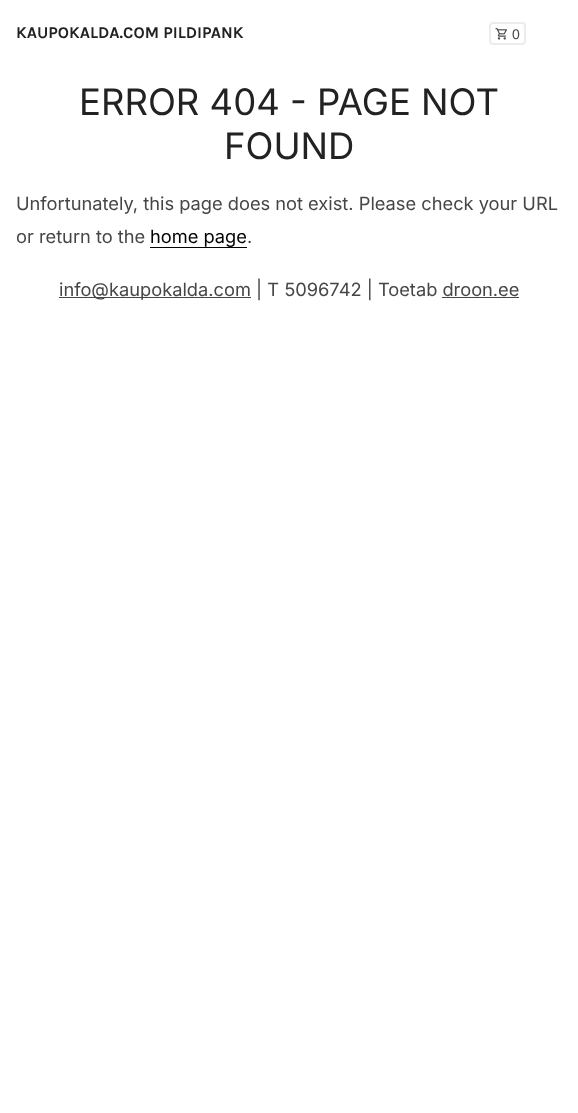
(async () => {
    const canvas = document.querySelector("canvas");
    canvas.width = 578;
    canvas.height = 1113;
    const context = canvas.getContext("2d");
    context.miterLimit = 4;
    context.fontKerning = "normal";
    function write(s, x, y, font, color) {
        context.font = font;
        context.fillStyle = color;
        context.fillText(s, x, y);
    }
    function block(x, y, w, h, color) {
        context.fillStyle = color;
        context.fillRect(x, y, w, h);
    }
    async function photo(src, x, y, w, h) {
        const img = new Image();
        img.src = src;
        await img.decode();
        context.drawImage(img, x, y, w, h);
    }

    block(0, 0, 578, 1113, "rgb(255, 255, 255)");
    write("KAUPOKALDA.COM PILDIPANK", 16, 38, "bold 16.4px Karla", "rgb(34, 34, 34)");
    context.beginPath();
    context.roundRect(490, 23, 35, 21, 3);
    context.strokeStyle = "rgb(236, 236, 236)";
    context.lineWidth = 2;
    context.stroke();
    await photo("media/1.png", 495, 28, 12, 12);
    write("0", 512, 39, "14px Liberation Sans", "rgb(70, 70, 70)");
    write("ERROR 404 - PAGE NOT", 79, 115, "36.5px Inter", "rgb(34, 34, 34)");
    write("FOUND", 224, 159, "36.5px Inter", "rgb(34, 34, 34)");
    write("Unfortunately, this page does not exist. Please check your URL", 16, 210, "18.25px Inter", "rgb(70, 70, 70)");
    write("or return to the", 16, 243, "18.25px Inter", "rgb(70, 70, 70)");
    write("home page", 150, 243, "18.25px Inter", "rgb(0, 0, 0)");
    block(150, 247, 97, 1, "rgb(0, 0, 0)");
    write(".", 247, 243, "18.25px Inter", "rgb(70, 70, 70)");
    block(59, 297, 192, 1, "rgb(70, 70, 70)");
    write("info@kaupokalda.com | T 5096742 | Toetab droon.ee", 59, 296, "18.25px Inter", "rgb(70, 70, 70)");
    block(442, 297, 77, 1, "rgb(70, 70, 70)");
})();
